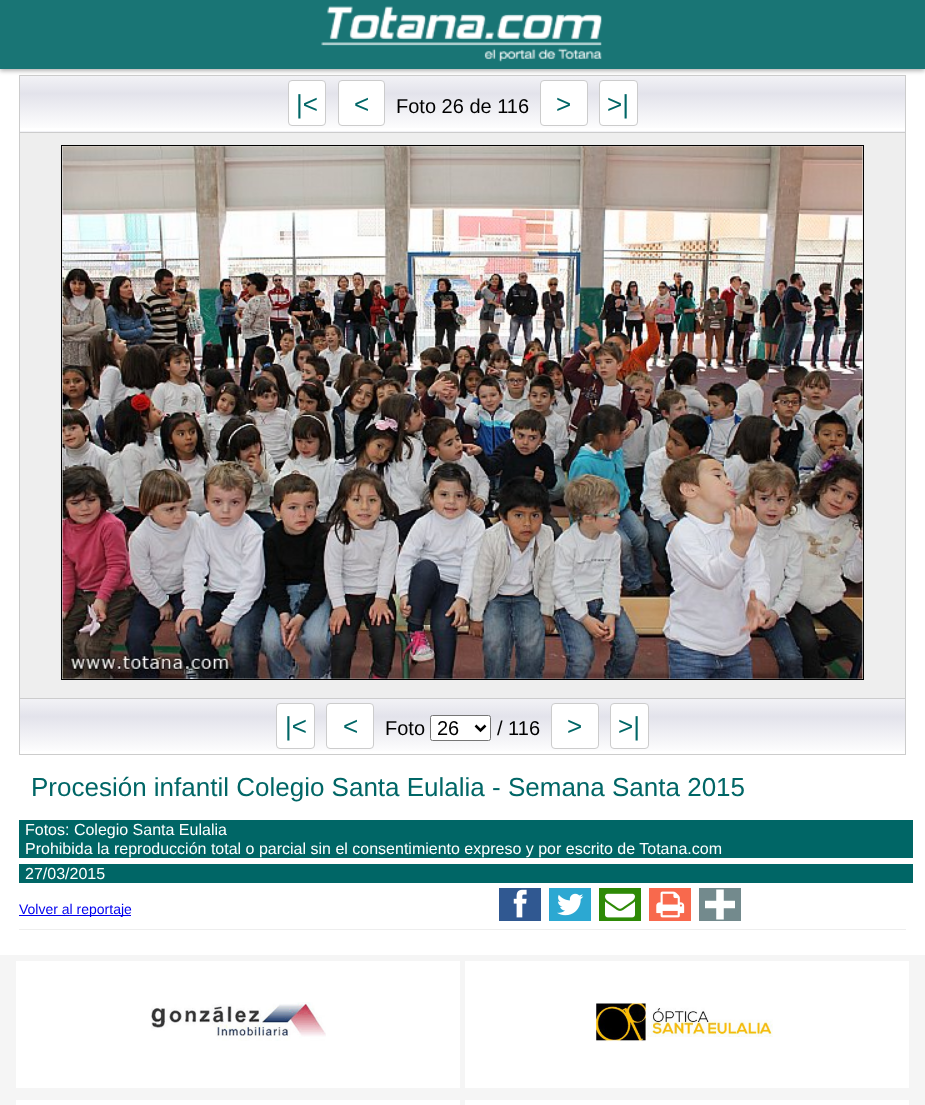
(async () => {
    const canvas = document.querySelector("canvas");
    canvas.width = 925;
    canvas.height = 1105;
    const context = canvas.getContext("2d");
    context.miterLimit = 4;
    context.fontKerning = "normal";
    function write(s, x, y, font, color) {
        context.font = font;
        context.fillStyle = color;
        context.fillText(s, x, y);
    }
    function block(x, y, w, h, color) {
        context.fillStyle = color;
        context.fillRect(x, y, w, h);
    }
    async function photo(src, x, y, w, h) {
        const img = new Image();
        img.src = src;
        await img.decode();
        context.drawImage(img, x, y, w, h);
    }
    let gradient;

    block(0, 0, 925, 1105, "rgb(249, 249, 249)");
    block(0, 0, 925, 23, "rgb(255, 255, 255)");
    block(0, 63, 925, 892, "rgb(255, 255, 255)");
    gradient = context.createLinearGradient(463, 76, 463, 131);
    gradient.addColorStop(0, "rgb(242, 242, 246)");
    gradient.addColorStop(0.32, "rgb(227, 227, 235)");
    gradient.addColorStop(1, "rgb(255, 255, 255)");
    context.fillStyle = gradient;
    context.fillRect(20, 76, 885, 52);
    gradient = context.createLinearGradient(463, 131, 463, 186);
    gradient.addColorStop(0, "rgb(242, 242, 246)");
    gradient.addColorStop(0.32, "rgb(227, 227, 235)");
    gradient.addColorStop(1, "rgb(255, 255, 255)");
    context.fillStyle = gradient;
    context.fillRect(19, 131, 887, 1);
    context.strokeStyle = "rgb(204, 204, 204)";
    context.strokeRect(19.5, 75.5, 886, 57);
    context.save();
    context.beginPath();
    context.moveTo(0, 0);
    context.lineTo(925, 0);
    context.lineTo(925, 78);
    context.lineTo(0, 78);
    context.closePath();
    context.moveTo(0, 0);
    context.lineTo(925, 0);
    context.lineTo(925, 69);
    context.lineTo(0, 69);
    context.closePath();
    context.clip("evenodd");
    context.fillStyle = "rgb(179, 179, 179)";
    context.filter = "blur(2px)";
    context.beginPath();
    context.rect(0, 3, 925, 68);
    context.fill();
    context.filter = "none";
    context.restore();
    block(0, 0, 925, 69, "rgba(0, 102, 102, 0.9)");
    await photo("media/1.png", 321, 6, 281, 56);
    context.fillStyle = "rgb(255, 255, 255)";
    context.beginPath();
    context.roundRect(288.5, 80.5, 37, 45, 3.5);
    context.fill();
    context.stroke();
    write("|<", 296, 113, "26px Liberation Sans", "rgb(0, 102, 102)");
    context.fillStyle = "rgb(255, 255, 255)";
    context.beginPath();
    context.roundRect(338.5, 80.5, 46, 45, 3.5);
    context.fill();
    context.stroke();
    write("<", 354, 113, "26px Liberation Sans", "rgb(0, 102, 102)");
    write("Foto 26 de 116", 396, 113, "20px Liberation Sans", "rgb(0, 0, 0)");
    context.fillStyle = "rgb(255, 255, 255)";
    context.beginPath();
    context.roundRect(540.5, 80.5, 47, 45, 3.5);
    context.fill();
    context.stroke();
    write(">", 556, 113, "26px Liberation Sans", "rgb(0, 102, 102)");
    context.fillStyle = "rgb(255, 255, 255)";
    context.beginPath();
    context.roundRect(599.5, 80.5, 38, 45, 3.5);
    context.fill();
    context.stroke();
    write(">|", 607, 113, "26px Liberation Sans", "rgb(0, 102, 102)");
    block(20, 133, 885, 565, "rgb(238, 238, 238)");
    block(905, 133, 1, 565, "rgb(204, 204, 204)");
    block(19, 133, 1, 565, "rgb(204, 204, 204)");
    context.strokeStyle = "rgb(0, 0, 0)";
    context.strokeRect(61.5, 145.5, 802, 534);
    await photo("media/2.png", 62, 146, 801, 533);
    gradient = context.createLinearGradient(463, 699, 463, 754);
    gradient.addColorStop(0, "rgb(242, 242, 246)");
    gradient.addColorStop(0.32, "rgb(227, 227, 235)");
    gradient.addColorStop(1, "rgb(255, 255, 255)");
    context.fillStyle = gradient;
    context.fillRect(20, 699, 885, 52);
    context.strokeStyle = "rgb(204, 204, 204)";
    context.strokeRect(19.5, 698.5, 886, 56);
    context.fillStyle = "rgb(255, 255, 255)";
    context.beginPath();
    context.roundRect(276.5, 703.5, 38, 45, 3.5);
    context.fill();
    context.stroke();
    write("|<", 285, 735, "26px Liberation Sans", "rgb(0, 102, 102)");
    context.fillStyle = "rgb(255, 255, 255)";
    context.beginPath();
    context.roundRect(326.5, 703.5, 47, 45, 3.5);
    context.fill();
    context.stroke();
    write("<", 343, 735, "26px Liberation Sans", "rgb(0, 102, 102)");
    write("Foto", 385, 735, "20px Liberation Sans", "rgb(0, 0, 0)");
    context.fillStyle = "rgb(255, 255, 255)";
    context.beginPath();
    context.roundRect(430.5, 715.5, 60, 25, 2);
    context.fill();
    context.strokeStyle = "rgb(118, 118, 118)";
    context.stroke();
    context.beginPath();
    context.moveTo(475.5, 725.5);
    context.lineTo(480.5, 730.5);
    context.lineTo(485.5, 725.5);
    context.strokeStyle = "rgb(0, 0, 0)";
    context.lineWidth = 2.5;
    context.stroke();
    write("26", 437, 735, "20px Liberation Sans", "rgb(0, 0, 0)");
    write("/ 116", 497, 735, "20px Liberation Sans", "rgb(0, 0, 0)");
    context.fillStyle = "rgb(255, 255, 255)";
    context.beginPath();
    context.roundRect(551.5, 703.5, 47, 45, 3.5);
    context.fill();
    context.strokeStyle = "rgb(204, 204, 204)";
    context.lineWidth = 1;
    context.stroke();
    write(">", 567, 735, "26px Liberation Sans", "rgb(0, 102, 102)");
    context.fillStyle = "rgb(255, 255, 255)";
    context.beginPath();
    context.roundRect(610.5, 703.5, 38, 45, 3.5);
    context.fill();
    context.stroke();
    write(">|", 618, 735, "26px Liberation Sans", "rgb(0, 102, 102)");
    write("Procesión infantil Colegio Santa Eulalia - Semana Santa 2015", 31, 796, "26px Liberation Sans", "rgb(0, 102, 102)");
    block(19, 820, 894, 38, "rgb(0, 102, 102)");
    write("Fotos: Colegio Santa Eulalia", 25, 835, "16px Liberation Sans", "rgb(255, 255, 255)");
    write("Prohibida la reproducción total o parcial sin el consentimiento expreso y por escrito de Totana.com", 25, 854, "16px Liberation Sans", "rgb(255, 255, 255)");
    block(19, 864, 894, 19, "rgb(0, 102, 102)");
    write("27/03/2015", 25, 879, "16px Liberation Sans", "rgb(255, 255, 255)");
    block(19, 929, 887, 1, "rgb(238, 238, 238)");
    block(19, 915, 112, 1, "rgb(0, 0, 238)");
    write("Volver al reportaje", 19, 914, "14px Liberation Sans", "rgb(0, 0, 238)");
    block(499, 888, 42, 33, "rgb(48, 88, 145)");
    await photo("media/3.png", 513, 889, 14, 29);
    block(549, 888, 42, 33, "rgb(44, 168, 210)");
    await photo("media/4.png", 557, 893, 27, 23);
    block(599, 888, 42, 33, "rgb(46, 138, 6)");
    await photo("media/5.png", 605, 893, 30, 25);
    block(649, 888, 42, 33, "rgb(248, 105, 77)");
    await photo("media/6.png", 656, 891, 29, 27);
    block(699, 888, 42, 33, "rgb(115, 138, 141)");
    await photo("media/7.png", 705, 889, 30, 31);
    block(0, 955, 925, 150, "rgb(245, 245, 245)");
    block(16, 961, 444, 127, "rgb(255, 255, 255)");
    await photo("media/8.png", 151, 1002, 175, 39);
    block(465, 961, 444, 127, "rgb(255, 255, 255)");
    await photo("media/9.png", 596, 1003, 177, 39);
    block(16, 1100, 444, 5, "rgb(255, 255, 255)");
    block(465, 1100, 444, 5, "rgb(255, 255, 255)");
})();
